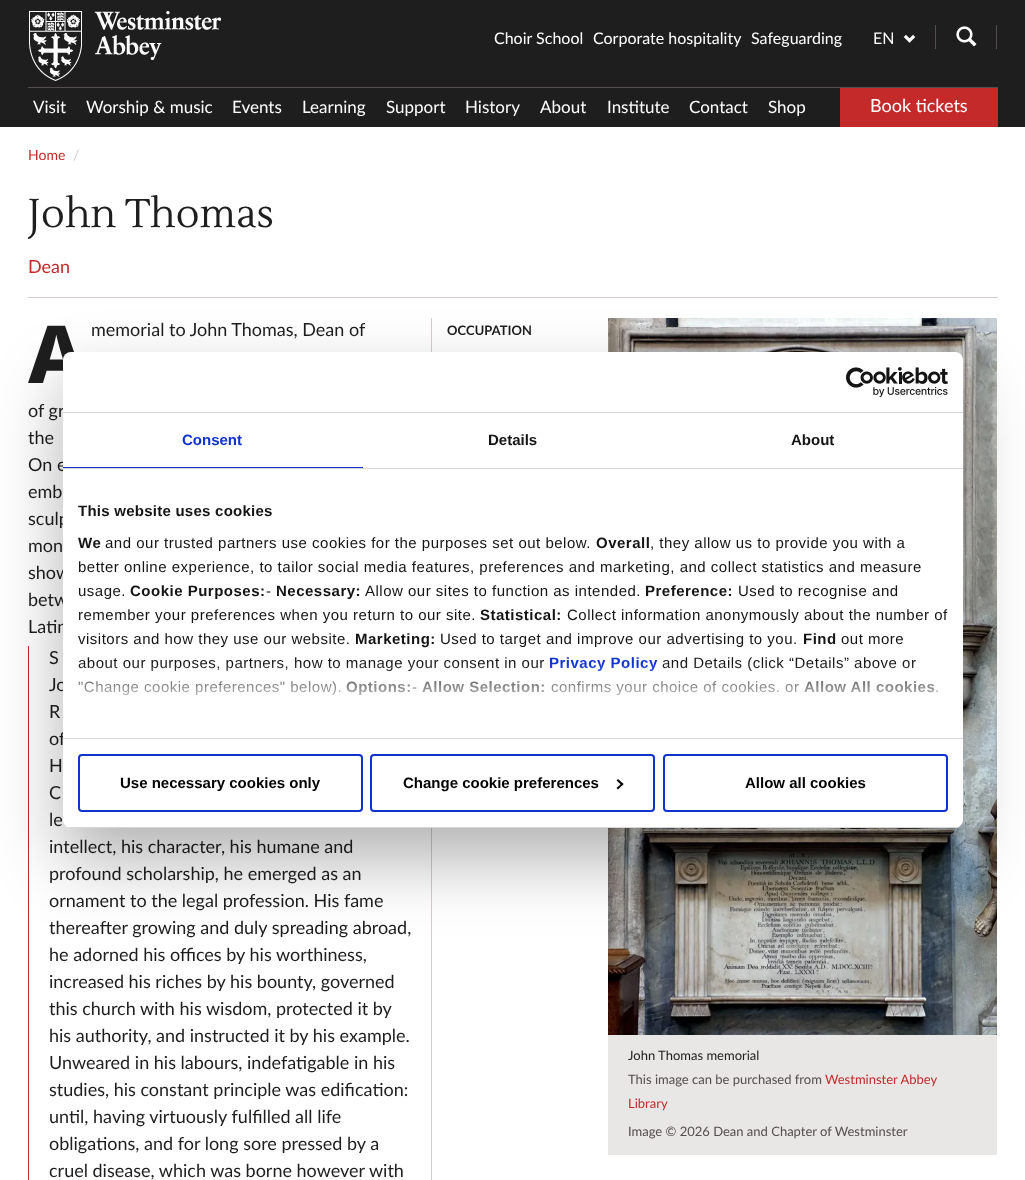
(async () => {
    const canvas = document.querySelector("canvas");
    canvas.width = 1025;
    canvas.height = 1180;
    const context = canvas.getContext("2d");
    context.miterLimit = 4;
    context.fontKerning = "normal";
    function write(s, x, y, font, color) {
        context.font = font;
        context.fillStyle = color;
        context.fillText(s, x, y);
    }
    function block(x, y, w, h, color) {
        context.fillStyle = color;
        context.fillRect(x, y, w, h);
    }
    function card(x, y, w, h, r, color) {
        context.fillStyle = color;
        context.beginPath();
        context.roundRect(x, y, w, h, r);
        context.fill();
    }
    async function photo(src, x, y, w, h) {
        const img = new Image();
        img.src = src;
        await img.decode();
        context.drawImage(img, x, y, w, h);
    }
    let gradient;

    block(0, 0, 1025, 1180, "rgb(30, 30, 30)");
    block(28, 87, 970, 1, "rgb(84, 78, 78)");
    write("Choir School", 494, 44, "16px Lato", "rgb(255, 255, 255)");
    write("Corporate hospitality", 593, 44, "16px Lato", "rgb(255, 255, 255)");
    write("Safeguarding", 751, 44, "16px Lato", "rgb(255, 255, 255)");
    write("Visit", 33, 113, "17px Lato", "rgb(255, 255, 255)");
    write("Worship & music", 86, 113, "17px Lato", "rgb(255, 255, 255)");
    write("Events", 232, 113, "17px Lato", "rgb(255, 255, 255)");
    write("Learning", 302, 113, "17px Lato", "rgb(255, 255, 255)");
    write("Support", 386, 113, "17px Lato", "rgb(255, 255, 255)");
    write("History", 465, 113, "17px Lato", "rgb(255, 255, 255)");
    write("About", 540, 113, "17px Lato", "rgb(255, 255, 255)");
    write("Institute", 607, 113, "17px Lato", "rgb(255, 255, 255)");
    write("Contact", 689, 113, "17px Lato", "rgb(255, 255, 255)");
    write("Shop", 768, 113, "17px Lato", "rgb(255, 255, 255)");
    block(840, 88, 158, 39, "rgb(196, 42, 42)");
    write("Book tickets", 870, 112, "18px Lato", "rgb(255, 255, 255)");
    await photo("media/1.png", 29, 11, 192, 70);
    write("EN", 873, 44, "16px Lato", "rgb(255, 255, 255)");
    await photo("media/2.png", 903, 34, 13, 9);
    block(996, 25, 1, 24, "rgb(84, 78, 78)");
    block(935, 25, 1, 24, "rgb(84, 78, 78)");
    await photo("media/3.png", 956, 26, 21, 21);
    block(0, 127, 1025, 1053, "rgb(255, 255, 255)");
    write("Home", 28, 160, "14px Lato", "rgb(196, 42, 42)");
    write("/", 73, 160, "14px Lato", "rgb(204, 204, 204)");
    block(28, 297, 970, 1, "rgb(211, 205, 205)");
    write("John Thomas", 28, 227, "40px Lustria", "rgb(30, 30, 30)");
    write("Dean", 28, 273, "18px Lato", "rgb(196, 42, 42)");
    block(431, 318, 1, 862, "rgb(211, 205, 205)");
    write("memorial to John Thomas, Dean of", 91, 336, "18px Lato", "rgb(30, 30, 30)");
    write("of gr", 28, 417, "18px Lato", "rgb(30, 30, 30)");
    write("the", 28, 444, "18px Lato", "rgb(30, 30, 30)");
    write("On e", 28, 471, "18px Lato", "rgb(30, 30, 30)");
    write("emb", 28, 498, "18px Lato", "rgb(30, 30, 30)");
    write("sculp", 28, 525, "18px Lato", "rgb(30, 30, 30)");
    write("mon", 28, 552, "18px Lato", "rgb(30, 30, 30)");
    write("show", 28, 579, "18px Lato", "rgb(30, 30, 30)");
    write("betw", 28, 606, "18px Lato", "rgb(30, 30, 30)");
    write("Latin", 28, 633, "18px Lato", "rgb(30, 30, 30)");
    write("A", 28, 383, "800 80px Noto Sans", "rgb(30, 30, 30)");
    block(28, 646, 1, 534, "rgb(196, 42, 42)");
    write("S", 49, 664, "18px Lato", "rgb(30, 30, 30)");
    write("Jo", 49, 691, "18px Lato", "rgb(30, 30, 30)");
    write("R", 49, 718, "18px Lato", "rgb(30, 30, 30)");
    write("of", 49, 745, "18px Lato", "rgb(30, 30, 30)");
    write("H", 49, 772, "18px Lato", "rgb(30, 30, 30)");
    write("C", 49, 799, "18px Lato", "rgb(30, 30, 30)");
    write("le", 49, 826, "18px Lato", "rgb(30, 30, 30)");
    write("intellect, his character, his humane and", 49, 853, "18px Lato", "rgb(30, 30, 30)");
    write("profound scholarship, he emerged as an", 49, 880, "18px Lato", "rgb(30, 30, 30)");
    write("ornament to the legal profession. His fame", 49, 907, "18px Lato", "rgb(30, 30, 30)");
    write("thereafter growing and duly spreading abroad,", 49, 934, "18px Lato", "rgb(30, 30, 30)");
    write("he adorned his offices by his worthiness,", 49, 961, "18px Lato", "rgb(30, 30, 30)");
    write("increased his riches by his bounty, governed", 49, 988, "18px Lato", "rgb(30, 30, 30)");
    write("this church with his wisdom, protected it by", 49, 1015, "18px Lato", "rgb(30, 30, 30)");
    write("his authority, and instructed it by his example.", 49, 1042, "18px Lato", "rgb(30, 30, 30)");
    write("Unweared in his labours, indefatigable in his", 49, 1069, "18px Lato", "rgb(30, 30, 30)");
    write("studies, his constant principle was edification:", 49, 1096, "18px Lato", "rgb(30, 30, 30)");
    write("until, having virtuously fulfilled all life", 49, 1123, "18px Lato", "rgb(30, 30, 30)");
    write("obligations, and for long sore pressed by a", 49, 1150, "18px Lato", "rgb(30, 30, 30)");
    write("cruel disease, which was borne however with", 49, 1177, "18px Lato", "rgb(30, 30, 30)");
    write("OCCUPATION", 447, 335, "bold 13px Lato", "rgb(30, 30, 30)");
    await photo("media/4.png", 608, 318, 389, 717);
    block(608, 1035, 389, 120, "rgb(233, 230, 230)");
    write("John Thomas memorial", 628, 1060, "13px Lato", "rgb(30, 30, 30)");
    write("This image can be purchased from", 628, 1084, "13px Lato", "rgb(84, 78, 78)");
    write("Westminster Abbey", 825, 1084, "13px Lato", "rgb(196, 42, 42)");
    write("Library", 628, 1108, "13px Lato", "rgb(196, 42, 42)");
    write("Image © 2026 Dean and Chapter of Westminster", 628, 1136, "13px Lato", "rgb(84, 78, 78)");
    context.fillStyle = "rgba(0, 0, 0, 0.3)";
    context.filter = "blur(34px)";
    context.beginPath();
    context.roundRect(63, 384, 900, 476, 8);
    context.fill();
    context.filter = "none";
    card(63, 352, 900, 476, 8, "rgb(255, 255, 255)");
    block(63, 412, 900, 1, "rgb(214, 214, 214)");
    await photo("media/5.png", 846, 367, 102, 30);
    block(63, 468, 900, 1, "rgb(214, 214, 214)");
    block(63, 467, 300, 1, "rgb(16, 50, 207)");
    write("Consent", 182, 445, "bold 15px Liberation Sans", "rgb(16, 50, 207)");
    write("Details", 488, 445, "bold 15px Liberation Sans", "rgb(20, 20, 20)");
    write("About", 791, 445, "bold 15px Liberation Sans", "rgb(20, 20, 20)");
    block(63, 738, 900, 1, "rgb(214, 214, 214)");
    context.letterSpacing = "0.25px";
    write("This website uses cookies", 78, 516, "bold 15px Liberation Sans", "rgb(20, 20, 20)");
    context.letterSpacing = "0.5px";
    write("We", 78, 548, "bold 15px Liberation Sans", "rgb(20, 20, 20)");
    write("and our trusted partners use cookies for the purposes set out below.", 105, 548, "15px Liberation Sans", "rgb(20, 20, 20)");
    write("Overall", 596, 548, "bold 15px Liberation Sans", "rgb(20, 20, 20)");
    write(", they allow us to provide you with a", 650, 548, "15px Liberation Sans", "rgb(20, 20, 20)");
    write("better online experience, to tailor social media features, preferences and marketing, and collect statistics and measure", 78, 572, "15px Liberation Sans", "rgb(20, 20, 20)");
    write("usage.", 78, 596, "15px Liberation Sans", "rgb(20, 20, 20)");
    write("Cookie Purposes:", 130, 596, "bold 15px Liberation Sans", "rgb(20, 20, 20)");
    write("-", 266, 596, "15px Liberation Sans", "rgb(20, 20, 20)");
    write("Necessary:", 276, 596, "bold 15px Liberation Sans", "rgb(20, 20, 20)");
    write("Allow our sites to function as intended.", 365, 596, "15px Liberation Sans", "rgb(20, 20, 20)");
    write("Preference:", 645, 596, "bold 15px Liberation Sans", "rgb(20, 20, 20)");
    write("Used to recognise and", 738, 596, "15px Liberation Sans", "rgb(20, 20, 20)");
    write("remember your preferences when you return to our site.", 78, 620, "15px Liberation Sans", "rgb(20, 20, 20)");
    write("Statistical:", 480, 620, "bold 15px Liberation Sans", "rgb(20, 20, 20)");
    write("Collect information anonymously about the number of", 567, 620, "15px Liberation Sans", "rgb(20, 20, 20)");
    write("visitors and how they use our website.", 78, 644, "15px Liberation Sans", "rgb(20, 20, 20)");
    write("Marketing:", 355, 644, "bold 15px Liberation Sans", "rgb(20, 20, 20)");
    write("Used to target and improve our advertising to you.", 440, 644, "15px Liberation Sans", "rgb(20, 20, 20)");
    write("Find", 803, 644, "bold 15px Liberation Sans", "rgb(20, 20, 20)");
    write("out more", 841, 644, "15px Liberation Sans", "rgb(20, 20, 20)");
    write("about our purposes, partners, how to manage your consent in our", 78, 668, "15px Liberation Sans", "rgb(20, 20, 20)");
    write("Privacy Policy", 549, 668, "bold 15px Liberation Sans", "rgb(16, 50, 207)");
    write("and Details (click “Details” above or", 662, 668, "15px Liberation Sans", "rgb(20, 20, 20)");
    write("\"Change cookie preferences\" below).", 78, 692, "15px Liberation Sans", "rgb(20, 20, 20)");
    write("Options:", 346, 692, "bold 15px Liberation Sans", "rgb(20, 20, 20)");
    write("-", 412, 692, "15px Liberation Sans", "rgb(20, 20, 20)");
    write("Allow Selection:", 422, 692, "bold 15px Liberation Sans", "rgb(20, 20, 20)");
    write("confirms your choice of cookies. or", 551, 692, "15px Liberation Sans", "rgb(20, 20, 20)");
    write("Allow All cookies", 804, 692, "bold 15px Liberation Sans", "rgb(20, 20, 20)");
    write(".", 935, 692, "15px Liberation Sans", "rgb(20, 20, 20)");
    gradient = context.createLinearGradient(507, 738, 507, 663);
    gradient.addColorStop(0, "rgb(255, 255, 255)");
    gradient.addColorStop(0.5, "rgba(255, 255, 255, 0.8)");
    gradient.addColorStop(1, "rgba(255, 255, 255, 0)");
    context.fillStyle = gradient;
    context.fillRect(78, 664, 860, 32);
    context.save();
    context.beginPath();
    context.roundRect(63, 352, 900, 476, 8);
    context.clip();
    block(63, 827, 900, 1, "rgb(214, 214, 214)");
    context.restore();
    context.beginPath();
    context.roundRect(79, 755, 283, 56, 3);
    context.strokeStyle = "rgb(16, 50, 207)";
    context.lineWidth = 2;
    context.stroke();
    context.letterSpacing = "0px";
    write("Use necessary cookies only", 120, 788, "bold 15px Liberation Sans", "rgb(0, 0, 0)");
    context.beginPath();
    context.roundRect(371, 755, 283, 56, 3);
    context.stroke();
    write("Change cookie preferences", 403, 788, "bold 15px Liberation Sans", "rgb(0, 0, 0)");
    context.beginPath();
    context.moveTo(618, 779);
    context.lineTo(623.5, 784);
    context.lineTo(622, 785.5);
    context.lineTo(616.5, 780.5);
    context.closePath();
    context.fill();
    context.beginPath();
    context.moveTo(622, 783);
    context.lineTo(623.5, 784);
    context.lineTo(618, 789.5);
    context.lineTo(616.5, 788);
    context.closePath();
    context.fill();
    context.beginPath();
    context.roundRect(664, 755, 283, 56, 3);
    context.stroke();
    write("Allow all cookies", 745, 788, "bold 15px Liberation Sans", "rgb(0, 0, 0)");
})();
